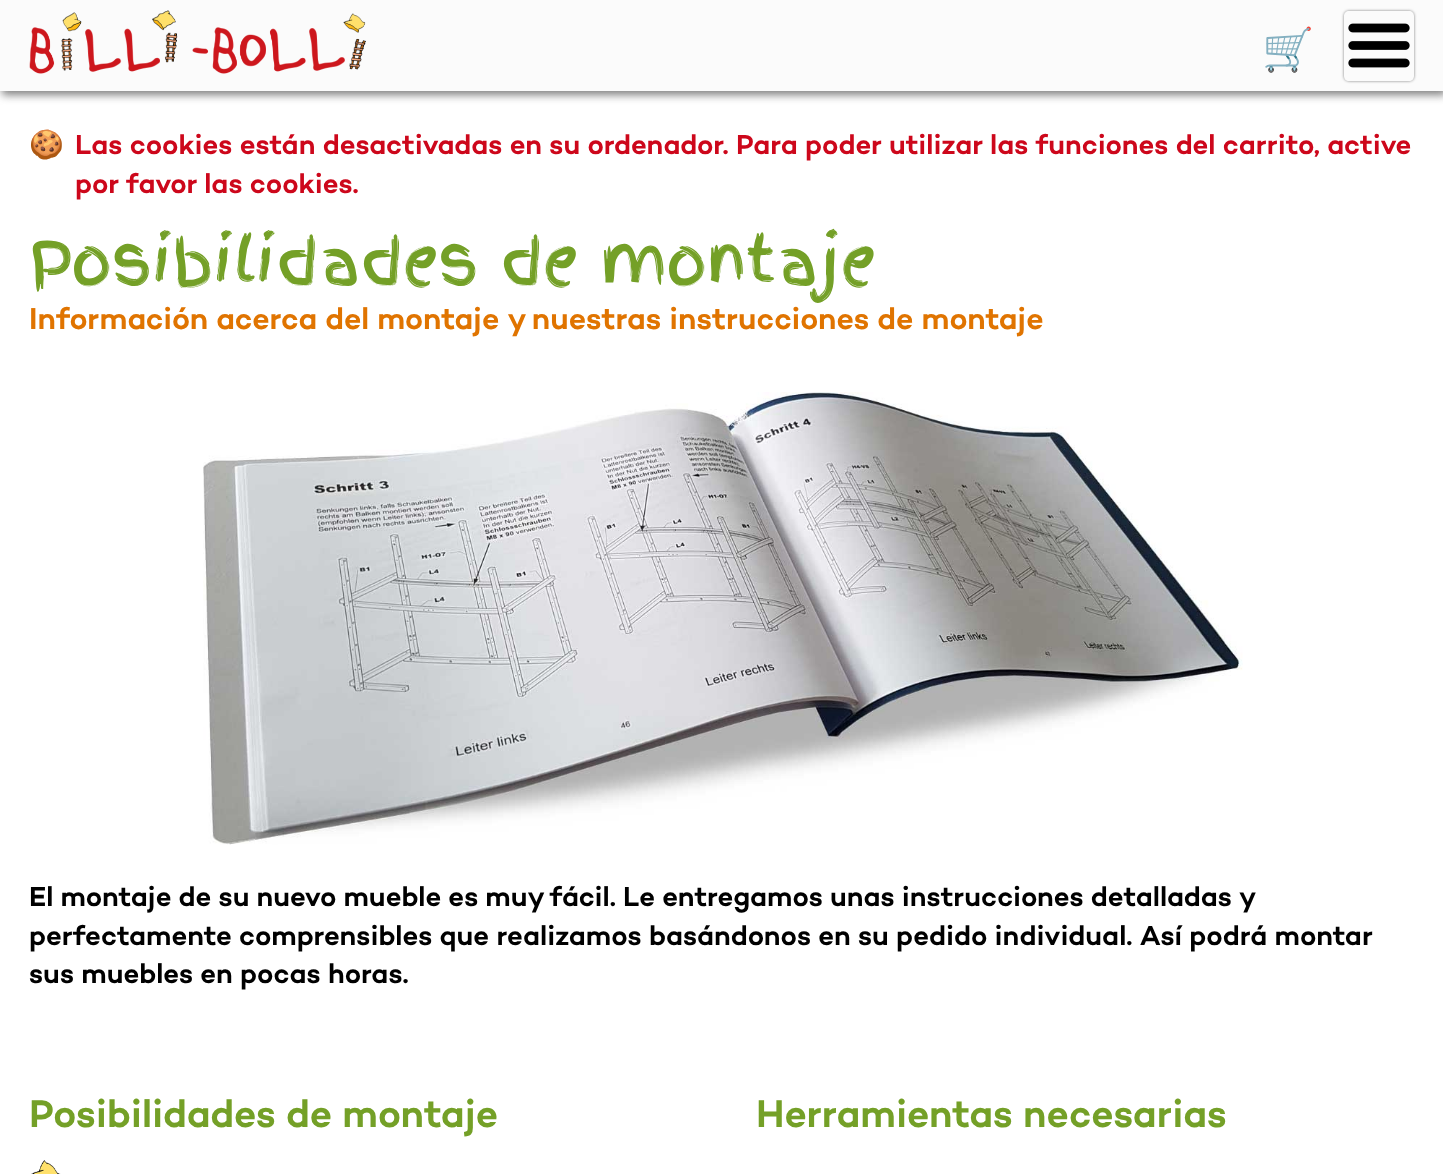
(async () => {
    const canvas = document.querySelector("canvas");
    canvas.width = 1443;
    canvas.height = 1174;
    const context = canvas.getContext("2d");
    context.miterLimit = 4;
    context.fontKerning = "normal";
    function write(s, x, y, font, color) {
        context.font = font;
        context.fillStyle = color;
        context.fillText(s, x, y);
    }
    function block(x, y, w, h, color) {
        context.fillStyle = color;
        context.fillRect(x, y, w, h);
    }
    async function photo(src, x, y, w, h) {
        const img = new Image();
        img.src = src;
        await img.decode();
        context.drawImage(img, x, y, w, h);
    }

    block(0, 0, 1443, 1174, "rgb(255, 255, 255)");
    context.fillStyle = "rgb(128, 128, 128)";
    context.filter = "blur(4px)";
    context.beginPath();
    context.rect(2, 4, 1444, 91);
    context.fill();
    context.filter = "none";
    block(0, 0, 1443, 91, "rgb(251, 251, 251)");
    await photo("media/1.png", 29, 10, 337, 64);
    context.save();
    context.beginPath();
    context.moveTo(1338, 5);
    context.lineTo(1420, 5);
    context.lineTo(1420, 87);
    context.lineTo(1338, 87);
    context.closePath();
    context.moveTo(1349, 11);
    context.lineTo(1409, 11);
    context.bezierCurveTo(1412, 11, 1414, 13, 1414, 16);
    context.lineTo(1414, 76);
    context.bezierCurveTo(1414, 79, 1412, 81, 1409, 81);
    context.lineTo(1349, 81);
    context.bezierCurveTo(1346, 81, 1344, 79, 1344, 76);
    context.lineTo(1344, 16);
    context.bezierCurveTo(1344, 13, 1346, 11, 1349, 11);
    context.closePath();
    context.clip("evenodd");
    context.fillStyle = "rgb(128, 128, 128)";
    context.filter = "blur(1.5px)";
    context.beginPath();
    context.roundRect(1344, 11, 70, 70, 5);
    context.fill();
    context.filter = "none";
    context.restore();
    write("🛒", 1262, 64, "bold 42px Noto Color Emoji", "rgb(224, 116, 0)");
    await photo("media/2.png", 1348, 23, 62, 45);
    write("🍪", 29, 154, "28px Noto Color Emoji", "rgb(205, 7, 27)");
    write("Las cookies están desactivadas en su ordenador. Para poder utilizar las funciones del carrito, active", 75, 154, "28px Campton", "rgb(205, 7, 27)");
    write("por favor las cookies.", 75, 193, "28px Campton", "rgb(205, 7, 27)");
    write("Posibilidades de montaje", 29, 284, "63px Finger Paint", "rgb(116, 160, 39)");
    write("Información acerca del montaje y nuestras instrucciones de montaje", 29, 329, "30.8px Campton", "rgb(224, 116, 0)");
    await photo("media/3.png", 203, 392, 1040, 453);
    context.wordSpacing = "-0.2px";
    write("El montaje de su nuevo mueble es muy fácil. Le entregamos unas instrucciones detalladas y", 29, 906, "28px Campton", "rgb(0, 0, 0)");
    context.wordSpacing = "0px";
    write("perfectamente comprensibles que realizamos basándonos en su pedido individual. Así podrá montar", 29, 945, "28px Campton", "rgb(0, 0, 0)");
    write("sus muebles en pocas horas.", 29, 983, "28px Campton", "rgb(0, 0, 0)");
    write("Posibilidades de montaje", 29, 1127, "39.25px Campton", "rgb(116, 160, 39)");
    await photo("media/4.png", 31, 1160, 30, 14);
    write("Herramientas necesarias", 756, 1127, "39.25px Campton", "rgb(116, 160, 39)");
})();
